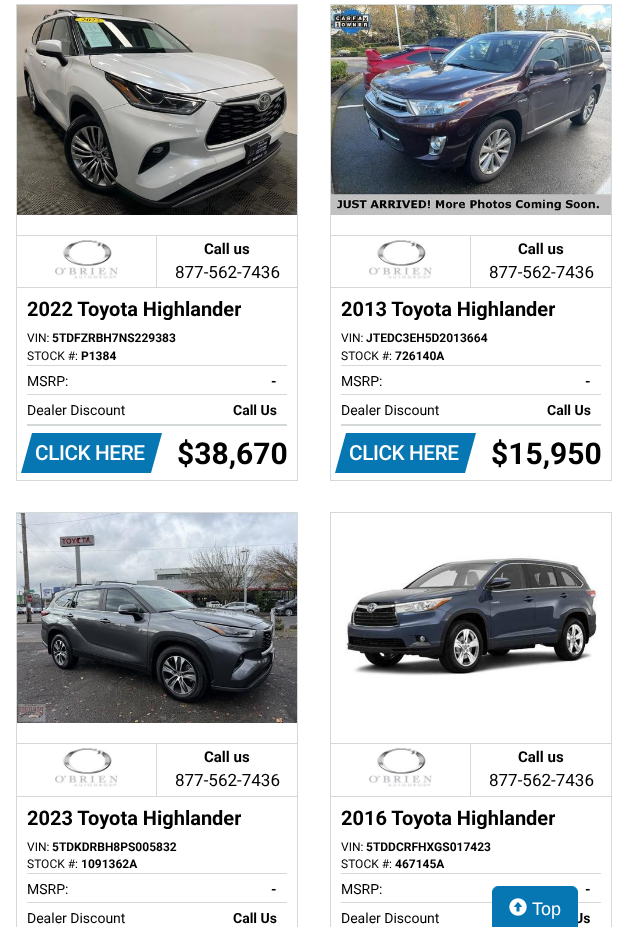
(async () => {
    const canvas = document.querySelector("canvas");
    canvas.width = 628;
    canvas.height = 927;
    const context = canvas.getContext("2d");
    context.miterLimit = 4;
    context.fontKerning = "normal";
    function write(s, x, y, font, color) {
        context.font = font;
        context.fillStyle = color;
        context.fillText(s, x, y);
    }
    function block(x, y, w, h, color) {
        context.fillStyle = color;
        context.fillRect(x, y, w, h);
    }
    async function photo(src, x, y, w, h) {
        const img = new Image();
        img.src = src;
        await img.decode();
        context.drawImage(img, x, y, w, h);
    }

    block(0, 0, 628, 927, "rgb(255, 255, 255)");
    context.strokeStyle = "rgb(212, 216, 217)";
    context.strokeRect(16.5, 4.5, 281, 476);
    await photo("media/1.png", 17, 5, 280, 210);
    block(17, 235, 280, 1, "rgb(212, 216, 217)");
    block(156, 235, 1, 53, "rgb(212, 216, 217)");
    block(17, 287, 280, 1, "rgb(212, 216, 217)");
    await photo("media/2.png", 55, 240, 63, 39);
    write("Call us", 204, 254, "bold 15px Roboto", "rgb(0, 0, 0)");
    write("877-562-7436", 175, 278, "17px Roboto", "rgb(0, 0, 0)");
    context.save();
    context.beginPath();
    context.rect(27, 298, 214, 22);
    context.clip();
    write("2022 Toyota Highlander", 27, 316, "bold 20px Roboto", "rgb(0, 0, 0)");
    context.restore();
    write("VIN:", 27, 342, "12px Roboto", "rgb(0, 0, 0)");
    write("5TDFZRBH7NS229383", 52, 342, "bold 12px Roboto", "rgb(0, 0, 0)");
    write("STOCK #:", 27, 360, "12px Roboto", "rgb(0, 0, 0)");
    write("P1384", 81, 360, "bold 12px Roboto", "rgb(0, 0, 0)");
    block(27, 365, 260, 1, "rgb(212, 216, 217)");
    block(27, 394, 260, 1, "rgb(212, 216, 217)");
    write("MSRP:", 27, 386, "14px Roboto", "rgb(0, 0, 0)");
    write("-", 271, 386, "bold 14px Roboto", "rgb(0, 0, 0)");
    block(27, 424, 260, 2, "rgb(212, 216, 217)");
    write("Dealer Discount", 27, 415, "14px Roboto", "rgb(0, 0, 0)");
    write("Call Us", 233, 415, "bold 14px Roboto", "rgb(0, 0, 0)");
    context.fillStyle = "rgb(7, 119, 179)";
    context.beginPath();
    context.moveTo(32, 433);
    context.lineTo(162, 433);
    context.lineTo(151, 473);
    context.lineTo(21, 473);
    context.closePath();
    context.fill();
    context.letterSpacing = "-0.4px";
    write("CLICK HERE", 35, 460, "500 20.75px Roboto", "rgb(255, 255, 255)");
    context.letterSpacing = "0px";
    write("$38,670", 177, 464, "bold 30px Roboto", "rgb(0, 0, 0)");
    context.strokeRect(330.5, 4.5, 281, 476);
    await photo("media/3.png", 331, 5, 280, 210);
    block(331, 235, 280, 1, "rgb(212, 216, 217)");
    block(470, 235, 1, 53, "rgb(212, 216, 217)");
    block(331, 287, 280, 1, "rgb(212, 216, 217)");
    await photo("media/2.png", 369, 240, 63, 39);
    write("Call us", 518, 254, "bold 15px Roboto", "rgb(0, 0, 0)");
    write("877-562-7436", 489, 278, "17px Roboto", "rgb(0, 0, 0)");
    context.save();
    context.beginPath();
    context.rect(341, 298, 214, 22);
    context.clip();
    write("2013 Toyota Highlander", 341, 316, "bold 20px Roboto", "rgb(0, 0, 0)");
    context.restore();
    write("VIN:", 341, 342, "12px Roboto", "rgb(0, 0, 0)");
    write("JTEDC3EH5D2013664", 366, 342, "bold 12px Roboto", "rgb(0, 0, 0)");
    write("STOCK #:", 341, 360, "12px Roboto", "rgb(0, 0, 0)");
    write("726140A", 395, 360, "bold 12px Roboto", "rgb(0, 0, 0)");
    block(341, 365, 260, 1, "rgb(212, 216, 217)");
    block(341, 394, 260, 1, "rgb(212, 216, 217)");
    write("MSRP:", 341, 386, "14px Roboto", "rgb(0, 0, 0)");
    write("-", 585, 386, "bold 14px Roboto", "rgb(0, 0, 0)");
    block(341, 424, 260, 2, "rgb(212, 216, 217)");
    write("Dealer Discount", 341, 415, "14px Roboto", "rgb(0, 0, 0)");
    write("Call Us", 547, 415, "bold 14px Roboto", "rgb(0, 0, 0)");
    context.fillStyle = "rgb(7, 119, 179)";
    context.beginPath();
    context.moveTo(346, 433);
    context.lineTo(476, 433);
    context.lineTo(465, 473);
    context.lineTo(335, 473);
    context.closePath();
    context.fill();
    context.letterSpacing = "-0.4px";
    write("CLICK HERE", 349, 460, "500 20.75px Roboto", "rgb(255, 255, 255)");
    context.letterSpacing = "0px";
    write("$15,950", 491, 464, "bold 30px Roboto", "rgb(0, 0, 0)");
    context.strokeRect(16.5, 512.5, 281, 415);
    await photo("media/4.png", 17, 513, 280, 210);
    block(17, 743, 280, 1, "rgb(212, 216, 217)");
    block(156, 743, 1, 54, "rgb(212, 216, 217)");
    block(17, 796, 280, 1, "rgb(212, 216, 217)");
    await photo("media/2.png", 55, 748, 63, 39);
    write("Call us", 204, 762, "bold 15px Roboto", "rgb(0, 0, 0)");
    write("877-562-7436", 175, 786, "17px Roboto", "rgb(0, 0, 0)");
    context.save();
    context.beginPath();
    context.rect(27, 807, 214, 22);
    context.clip();
    write("2023 Toyota Highlander", 27, 825, "bold 20px Roboto", "rgb(0, 0, 0)");
    context.restore();
    write("VIN:", 27, 851, "12px Roboto", "rgb(0, 0, 0)");
    write("5TDKDRBH8PS005832", 52, 851, "bold 12px Roboto", "rgb(0, 0, 0)");
    write("STOCK #:", 27, 868, "12px Roboto", "rgb(0, 0, 0)");
    write("1091362A", 81, 868, "bold 12px Roboto", "rgb(0, 0, 0)");
    block(27, 873, 260, 1, "rgb(212, 216, 217)");
    block(27, 902, 260, 1, "rgb(212, 216, 217)");
    write("MSRP:", 27, 894, "14px Roboto", "rgb(0, 0, 0)");
    write("-", 271, 894, "bold 14px Roboto", "rgb(0, 0, 0)");
    write("Dealer Discount", 27, 923, "14px Roboto", "rgb(0, 0, 0)");
    write("Call Us", 233, 923, "bold 14px Roboto", "rgb(0, 0, 0)");
    context.strokeRect(330.5, 512.5, 281, 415);
    await photo("media/5.png", 345, 555, 257, 121);
    block(331, 743, 280, 1, "rgb(212, 216, 217)");
    block(470, 743, 1, 54, "rgb(212, 216, 217)");
    block(331, 796, 280, 1, "rgb(212, 216, 217)");
    await photo("media/2.png", 369, 748, 63, 39);
    write("Call us", 518, 762, "bold 15px Roboto", "rgb(0, 0, 0)");
    write("877-562-7436", 489, 786, "17px Roboto", "rgb(0, 0, 0)");
    context.save();
    context.beginPath();
    context.rect(341, 807, 214, 22);
    context.clip();
    write("2016 Toyota Highlander", 341, 825, "bold 20px Roboto", "rgb(0, 0, 0)");
    context.restore();
    write("VIN:", 341, 851, "12px Roboto", "rgb(0, 0, 0)");
    write("5TDDCRFHXGS017423", 366, 851, "bold 12px Roboto", "rgb(0, 0, 0)");
    write("STOCK #:", 341, 868, "12px Roboto", "rgb(0, 0, 0)");
    write("467145A", 395, 868, "bold 12px Roboto", "rgb(0, 0, 0)");
    block(341, 873, 260, 1, "rgb(212, 216, 217)");
    block(341, 902, 260, 1, "rgb(212, 216, 217)");
    write("MSRP:", 341, 894, "14px Roboto", "rgb(0, 0, 0)");
    write("-", 585, 894, "bold 14px Roboto", "rgb(0, 0, 0)");
    write("Dealer Discount", 341, 923, "14px Roboto", "rgb(0, 0, 0)");
    write("Us", 574, 923, "bold 14px Roboto", "rgb(0, 0, 0)");
    context.fillStyle = "rgb(7, 119, 179)";
    context.beginPath();
    context.roundRect(492.5, 886.5, 85, 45, 5.5);
    context.fill();
    context.strokeStyle = "rgb(7, 119, 179)";
    context.stroke();
    await photo("media/6.png", 509, 898, 18, 18);
    write("Top", 532, 915, "18px Liberation Sans", "rgb(255, 255, 255)");
})();
